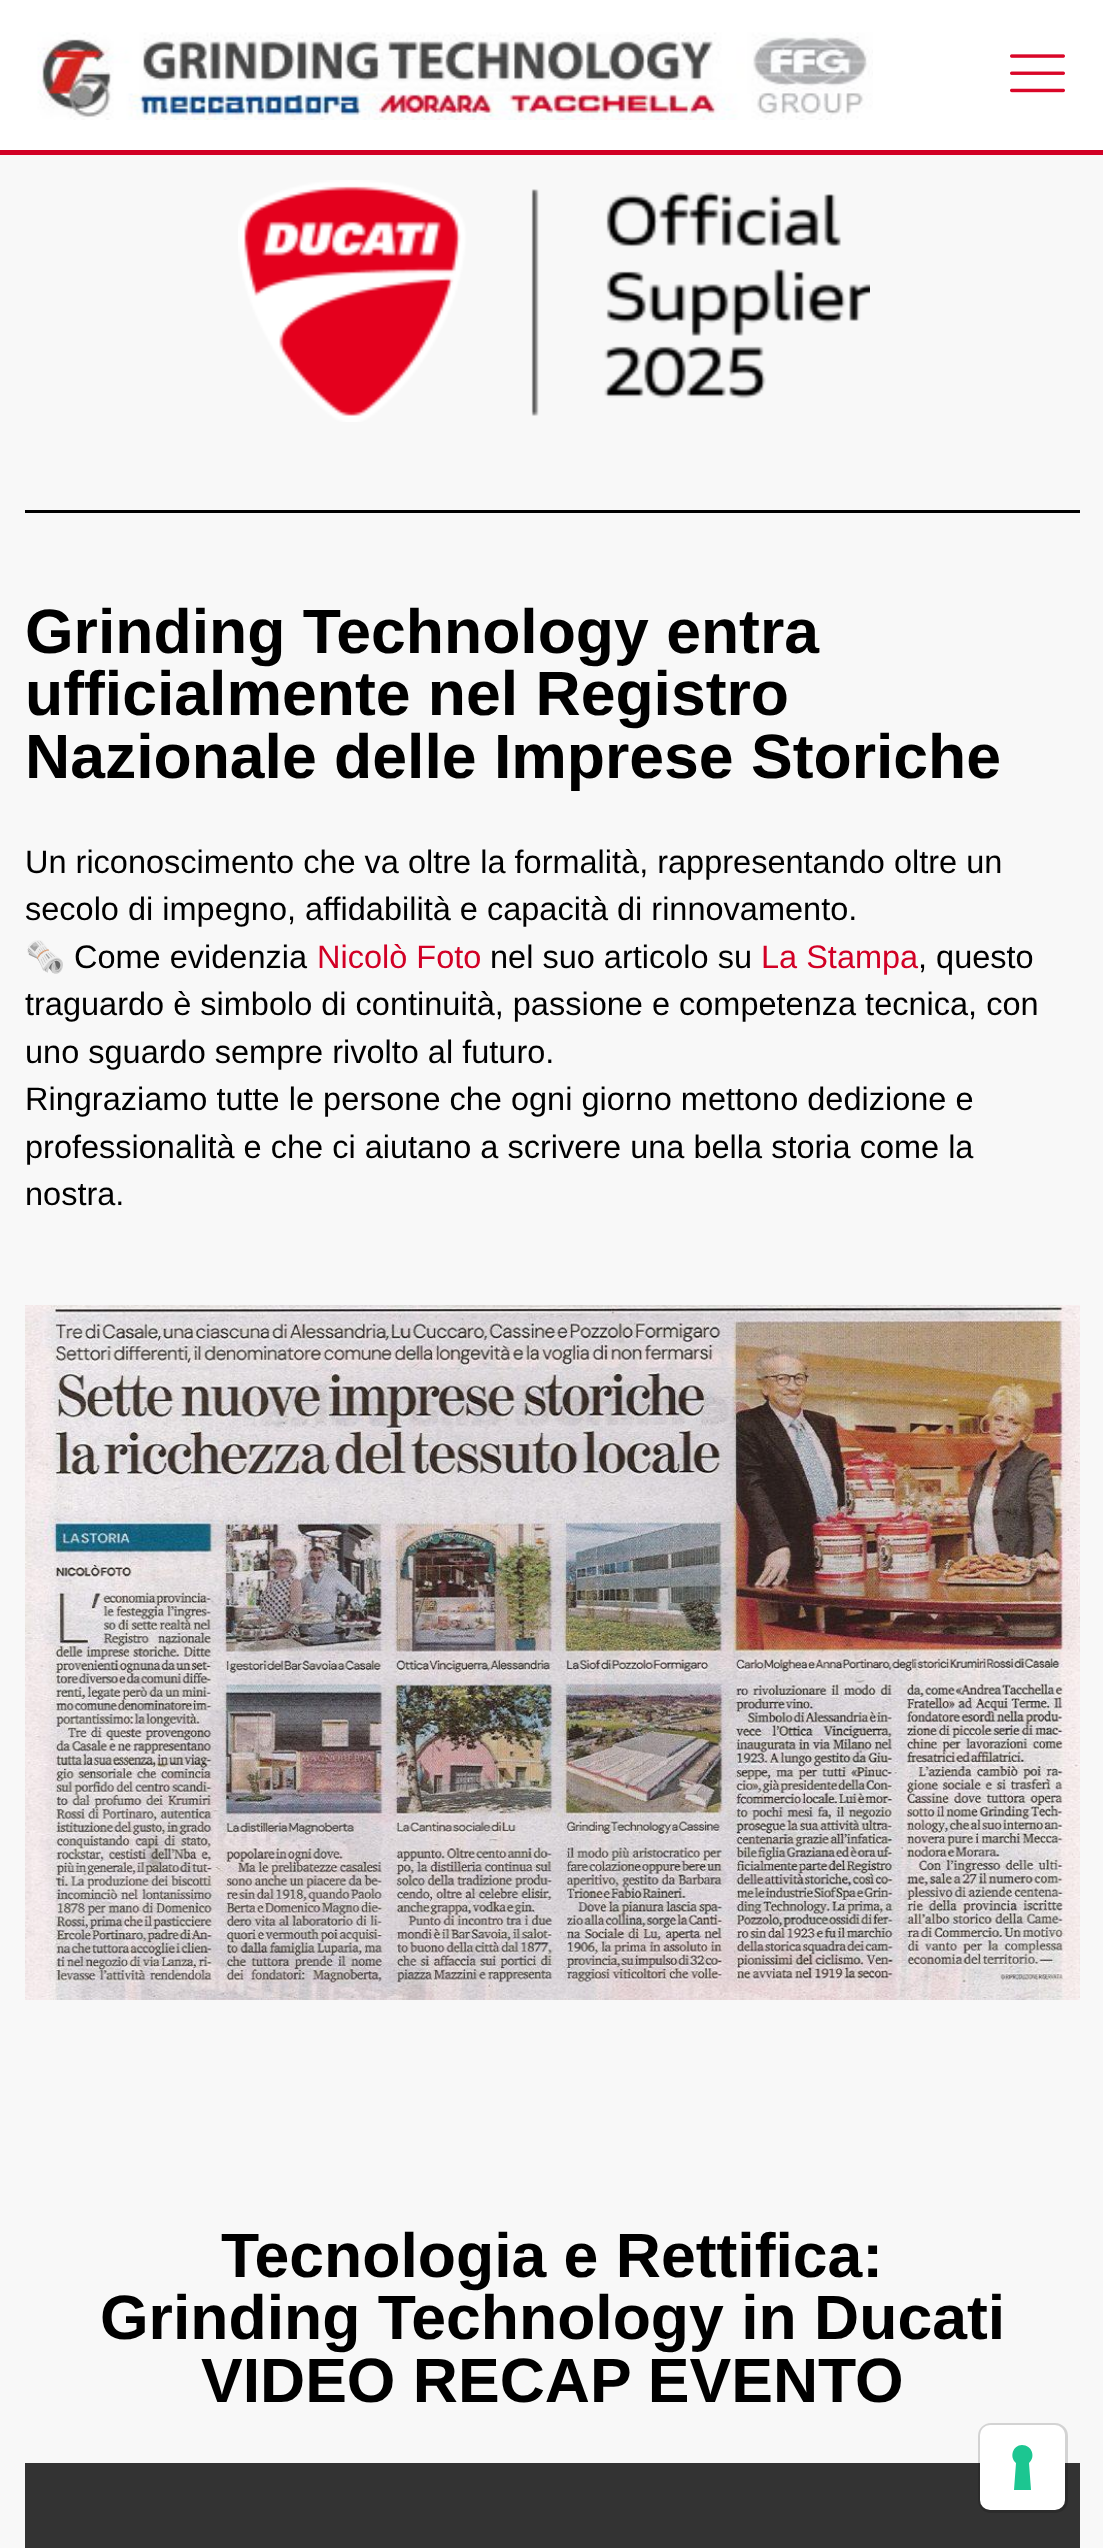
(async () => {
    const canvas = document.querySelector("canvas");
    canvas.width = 1103;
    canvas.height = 2548;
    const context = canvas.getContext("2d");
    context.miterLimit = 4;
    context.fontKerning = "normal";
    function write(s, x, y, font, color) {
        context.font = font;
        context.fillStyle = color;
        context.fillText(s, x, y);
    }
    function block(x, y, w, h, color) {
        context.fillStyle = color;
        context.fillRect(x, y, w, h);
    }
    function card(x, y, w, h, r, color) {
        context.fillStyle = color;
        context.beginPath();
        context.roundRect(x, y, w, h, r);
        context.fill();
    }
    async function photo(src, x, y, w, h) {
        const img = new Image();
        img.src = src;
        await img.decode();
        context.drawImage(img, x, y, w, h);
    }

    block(0, 0, 1103, 2548, "rgb(248, 248, 248)");
    block(0, 0, 1103, 150, "rgb(255, 255, 255)");
    block(0, 150, 1103, 5, "rgb(210, 0, 37)");
    await photo("media/1.png", 37, 32, 836, 88);
    await photo("media/2.png", 1010, 54, 55, 39);
    await photo("media/3.png", 238, 180, 632, 242);
    block(25, 510, 1055, 3, "rgb(0, 0, 0)");
    write("Grinding Technology entra", 25, 653, "bold 62.5px Liberation Sans", "rgb(0, 0, 0)");
    write("ufficialmente nel Registro", 25, 715, "bold 62.5px Liberation Sans", "rgb(0, 0, 0)");
    write("Nazionale delle Imprese Storiche", 25, 778, "bold 62.5px Liberation Sans", "rgb(0, 0, 0)");
    write("Un riconoscimento che va oltre la formalità, rappresentando oltre un", 25, 873, "32.5px Liberation Sans", "rgb(0, 0, 0)");
    write("secolo di impegno, affidabilità e capacità di rinnovamento.", 25, 920, "32.5px Liberation Sans", "rgb(0, 0, 0)");
    write("🗞️", 25, 968, "32.5px Noto Color Emoji", "rgb(0, 0, 0)");
    write("Come evidenzia", 74, 968, "32.5px Liberation Sans", "rgb(0, 0, 0)");
    write("Nicolò Foto", 317, 968, "32.5px Liberation Sans", "rgb(210, 0, 37)");
    write("nel suo articolo su", 490, 968, "32.5px Liberation Sans", "rgb(0, 0, 0)");
    write("La Stampa", 761, 968, "32.5px Liberation Sans", "rgb(210, 0, 37)");
    write(", questo", 918, 968, "32.5px Liberation Sans", "rgb(0, 0, 0)");
    write("traguardo è simbolo di continuità, passione e competenza tecnica, con", 25, 1015, "32.5px Liberation Sans", "rgb(0, 0, 0)");
    write("uno sguardo sempre rivolto al futuro.", 25, 1063, "32.5px Liberation Sans", "rgb(0, 0, 0)");
    write("Ringraziamo tutte le persone che ogni giorno mettono dedizione e", 25, 1110, "32.5px Liberation Sans", "rgb(0, 0, 0)");
    write("professionalità e che ci aiutano a scrivere una bella storia come la", 25, 1158, "32.5px Liberation Sans", "rgb(0, 0, 0)");
    write("nostra.", 25, 1205, "32.5px Liberation Sans", "rgb(0, 0, 0)");
    await photo("media/4.png", 25, 1305, 1055, 695);
    write("Tecnologia e Rettifica:", 221, 2277, "bold 62.5px Liberation Sans", "rgb(0, 0, 0)");
    write("Grinding Technology in Ducati", 100, 2339, "bold 62.5px Liberation Sans", "rgb(0, 0, 0)");
    write("VIDEO RECAP EVENTO", 201, 2402, "bold 62.5px Liberation Sans", "rgb(0, 0, 0)");
    block(25, 2463, 1055, 85, "rgb(51, 51, 51)");
    context.beginPath();
    context.roundRect(979.5, 2424.5, 87, 87, 11.5);
    context.strokeStyle = "rgba(0, 0, 0, 0.15)";
    context.lineWidth = 3;
    context.stroke();
    card(980, 2425, 85, 85, 10, "rgb(255, 255, 255)");
    context.fillStyle = "rgb(28, 198, 145)";
    context.beginPath();
    context.moveTo(1022, 2445);
    context.bezierCurveTo(1032, 2445, 1036, 2457, 1029, 2463);
    context.lineTo(1031, 2490);
    context.lineTo(1014, 2490);
    context.lineTo(1016, 2463);
    context.bezierCurveTo(1009, 2457, 1013, 2445, 1022, 2445);
    context.closePath();
    context.fill("evenodd");
})();
